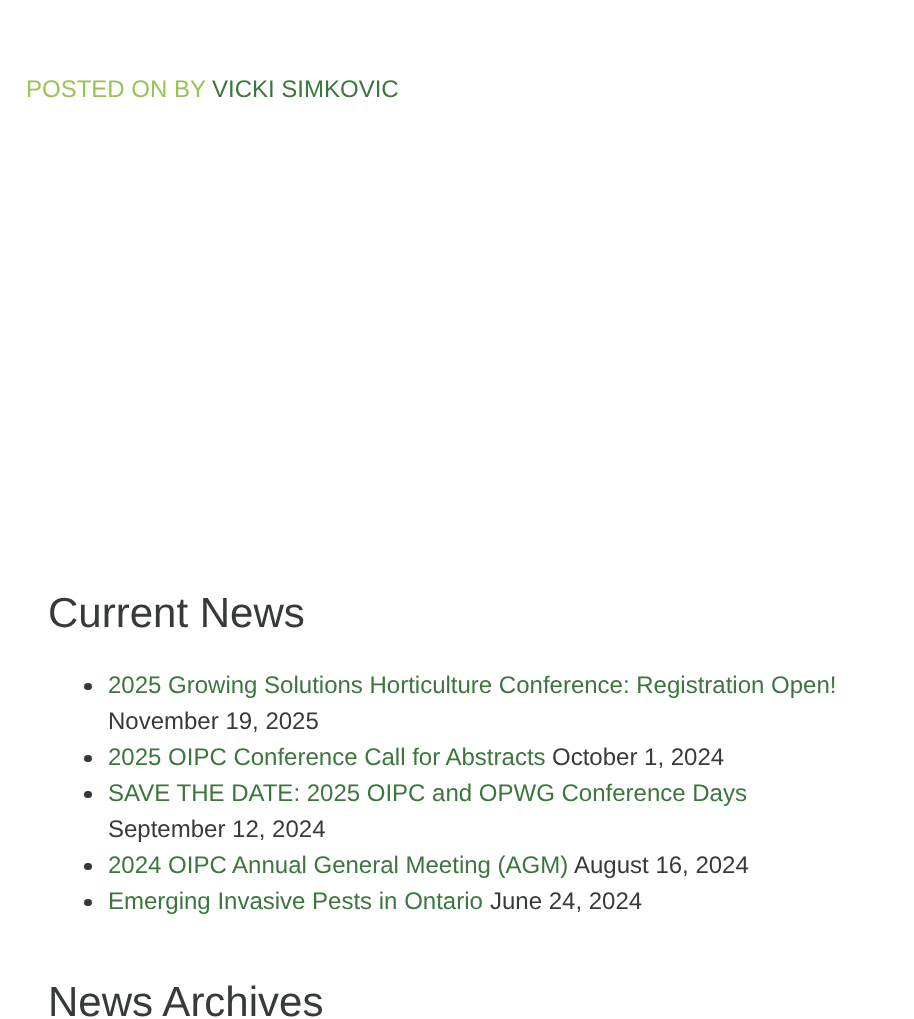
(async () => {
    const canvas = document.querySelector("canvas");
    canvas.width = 914;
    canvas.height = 1019;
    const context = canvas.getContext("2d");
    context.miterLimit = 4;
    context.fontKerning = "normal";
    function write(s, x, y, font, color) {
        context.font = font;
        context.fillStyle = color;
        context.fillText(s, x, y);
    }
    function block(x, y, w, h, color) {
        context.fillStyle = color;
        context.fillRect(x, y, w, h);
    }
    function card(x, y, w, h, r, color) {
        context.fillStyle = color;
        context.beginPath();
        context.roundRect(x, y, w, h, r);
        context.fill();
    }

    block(0, 0, 914, 1019, "rgb(255, 255, 255)");
    write("POSTED ON BY", 26, 97, "24px Liberation Sans", "rgb(153, 195, 85)");
    write("VICKI SIMKOVIC", 212, 97, "24px Liberation Sans", "rgb(60, 118, 61)");
    write("Current News", 48, 627, "42px Liberation Sans", "rgb(55, 58, 60)");
    card(84, 683, 8, 7, 3.5, "rgb(55, 58, 60)");
    write("2025 Growing Solutions Horticulture Conference: Registration Open!", 108, 693, "24px Liberation Sans", "rgb(60, 118, 61)");
    write("November 19, 2025", 108, 729, "24px Liberation Sans", "rgb(55, 58, 60)");
    card(84, 755, 8, 7, 3.5, "rgb(55, 58, 60)");
    write("2025 OIPC Conference Call for Abstracts", 108, 765, "24px Liberation Sans", "rgb(60, 118, 61)");
    write("October 1, 2024", 552, 765, "24px Liberation Sans", "rgb(55, 58, 60)");
    card(84, 791, 8, 7, 3.5, "rgb(55, 58, 60)");
    write("SAVE THE DATE: 2025 OIPC and OPWG Conference Days", 108, 801, "24px Liberation Sans", "rgb(60, 118, 61)");
    write("September 12, 2024", 108, 837, "24px Liberation Sans", "rgb(55, 58, 60)");
    card(84, 863, 8, 7, 3.5, "rgb(55, 58, 60)");
    write("2024 OIPC Annual General Meeting (AGM)", 108, 873, "24px Liberation Sans", "rgb(60, 118, 61)");
    write("August 16, 2024", 574, 873, "24px Liberation Sans", "rgb(55, 58, 60)");
    card(84, 899, 8, 7, 3.5, "rgb(55, 58, 60)");
    write("Emerging Invasive Pests in Ontario", 108, 909, "24px Liberation Sans", "rgb(60, 118, 61)");
    write("June 24, 2024", 490, 909, "24px Liberation Sans", "rgb(55, 58, 60)");
    write("News Archives", 48, 1016, "42px Liberation Sans", "rgb(55, 58, 60)");
})();
